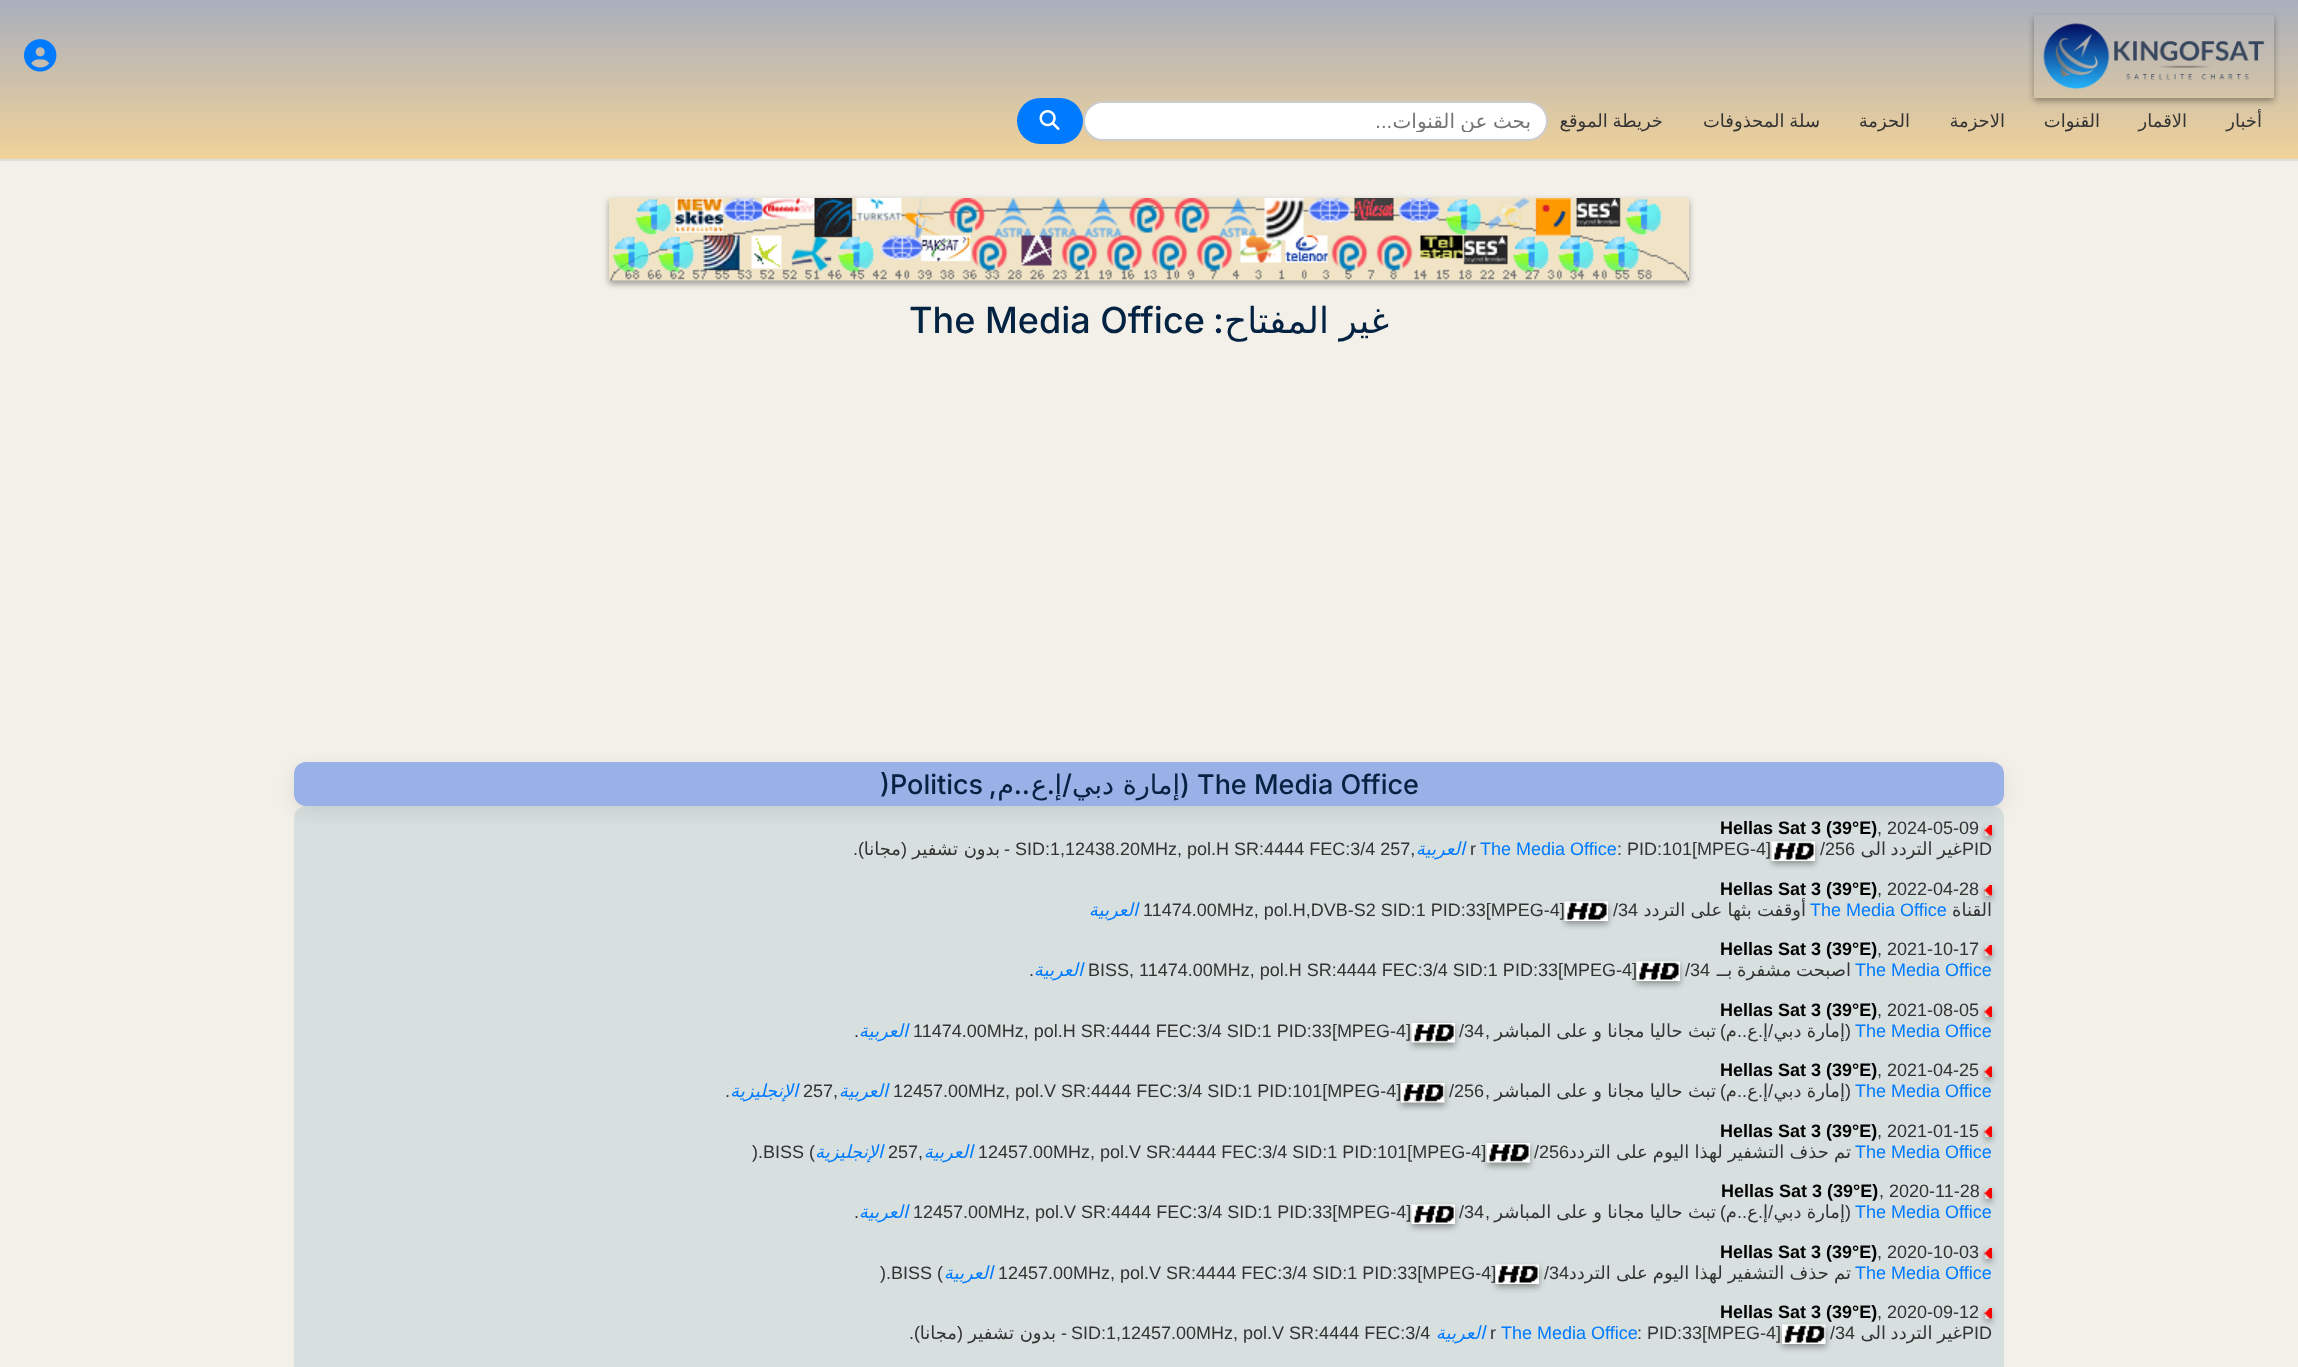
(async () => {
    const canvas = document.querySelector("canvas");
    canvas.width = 2298;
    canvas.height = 1367;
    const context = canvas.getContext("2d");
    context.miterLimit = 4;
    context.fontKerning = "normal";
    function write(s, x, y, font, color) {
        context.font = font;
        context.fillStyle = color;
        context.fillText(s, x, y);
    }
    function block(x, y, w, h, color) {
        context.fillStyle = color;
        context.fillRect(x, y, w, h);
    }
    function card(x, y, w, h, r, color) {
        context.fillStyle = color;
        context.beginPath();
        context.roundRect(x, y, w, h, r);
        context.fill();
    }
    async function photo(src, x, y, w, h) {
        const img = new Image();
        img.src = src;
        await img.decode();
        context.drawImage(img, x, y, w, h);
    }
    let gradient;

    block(0, 0, 2298, 1367, "rgb(255, 255, 255)");
    gradient = context.createLinearGradient(1149, 0, 1149, 159);
    gradient.addColorStop(0, "rgb(169, 175, 189)");
    gradient.addColorStop(1, "rgb(241, 210, 153)");
    context.fillStyle = gradient;
    context.fillRect(0, 0, 2298, 159);
    block(0, 159, 2298, 2, "rgb(221, 221, 221)");
    await photo("media/1.png", 24, 39, 33, 33);
    context.save();
    context.beginPath();
    context.moveTo(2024, 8);
    context.lineTo(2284, 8);
    context.lineTo(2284, 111);
    context.lineTo(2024, 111);
    context.closePath();
    context.moveTo(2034, 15);
    context.lineTo(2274, 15);
    context.lineTo(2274, 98);
    context.lineTo(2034, 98);
    context.closePath();
    context.clip("evenodd");
    context.fillStyle = "rgba(0, 0, 0, 0.35)";
    context.filter = "blur(3px)";
    context.beginPath();
    context.rect(2034, 18, 240, 83);
    context.fill();
    context.filter = "none";
    context.restore();
    await photo("media/2.png", 2043, 23, 222, 66);
    card(1017, 98, 66, 46, 23, "rgb(0, 123, 255)");
    await photo("media/3.png", 1039, 110, 21, 20);
    context.fillStyle = "rgb(255, 255, 255)";
    context.beginPath();
    context.roundRect(1084, 102, 463, 38, 19);
    context.fill();
    context.strokeStyle = "rgb(204, 204, 204)";
    context.lineWidth = 2;
    context.stroke();
    context.direction = "rtl";
    write("...", 1392, 128, "20px Liberation Sans", "rgb(117, 117, 117)");
    context.save();
    context.beginPath();
    context.rect(1100, 110, 432, 22);
    context.clip();
    context.wordSpacing = "-1px";
    write("بحث عن القنوات", 1531, 128, "20px DejaVu Sans", "rgb(117, 117, 117)");
    context.restore();
    context.wordSpacing = "-1px";
    write("خريطة الموقع", 1663, 127, "18px DejaVu Sans", "rgb(51, 51, 51)");
    write("سلة المحذوفات", 1820, 127, "18px DejaVu Sans", "rgb(51, 51, 51)");
    context.wordSpacing = "0px";
    write("الحزمة", 1910, 127, "18px DejaVu Sans", "rgb(51, 51, 51)");
    write("الاحزمة", 2005, 127, "18px DejaVu Sans", "rgb(51, 51, 51)");
    write("القنوات", 2100, 127, "18px DejaVu Sans", "rgb(51, 51, 51)");
    write("الاقمار", 2187, 127, "18px DejaVu Sans", "rgb(51, 51, 51)");
    write("أخبار", 2262, 127, "18px DejaVu Sans", "rgb(51, 51, 51)");
    block(0, 161, 2298, 1206, "rgb(243, 240, 233)");
    context.fillStyle = "rgba(0, 0, 0, 0.35)";
    context.filter = "blur(3px)";
    context.beginPath();
    context.rect(609, 201, 1080, 83);
    context.fill();
    context.filter = "none";
    await photo("media/4.png", 609, 198, 1080, 83);
    context.direction = "ltr";
    write("The Media Office", 909, 333, "500 36px Inter", "rgb(4, 34, 66)");
    context.direction = "rtl";
    write(":", 1224, 333, "500 36px Inter", "rgb(4, 34, 66)");
    context.wordSpacing = "-1px";
    write("غير المفتاح", 1389, 333, "36px DejaVu Sans", "rgb(4, 34, 66)");
    card(294, 806, 1710, 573, 12, "rgb(215, 223, 223)");
    context.save();
    context.beginPath();
    context.moveTo(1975, 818);
    context.lineTo(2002, 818);
    context.lineTo(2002, 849);
    context.lineTo(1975, 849);
    context.closePath();
    context.moveTo(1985, 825);
    context.lineTo(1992, 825);
    context.lineTo(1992, 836);
    context.lineTo(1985, 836);
    context.closePath();
    context.clip("evenodd");
    context.fillStyle = "rgba(0, 0, 0, 0.35)";
    context.filter = "blur(3px)";
    context.beginPath();
    context.rect(1985, 828, 7, 11);
    context.fill();
    context.filter = "none";
    context.restore();
    await photo("media/5.png", 1984, 825, 8, 11);
    context.fillStyle = "rgba(0, 0, 0, 0.08)";
    context.filter = "blur(9px)";
    context.beginPath();
    context.roundRect(294, 768, 1710, 44, 12);
    context.fill();
    context.filter = "none";
    card(294, 762, 1710, 44, 12, "rgb(153, 177, 231)");
    context.wordSpacing = "0px";
    context.direction = "ltr";
    write(")Politics", 880, 794, "500 27px Inter", "rgb(4, 34, 66)");
    context.direction = "rtl";
    write(",", 997, 794, "500 27px Inter", "rgb(4, 34, 66)");
    write("م", 1014, 794, "27px DejaVu Sans", "rgb(4, 34, 66)");
    write("..", 1030, 794, "500 27px Inter", "rgb(4, 34, 66)");
    write("ع", 1047, 794, "27px DejaVu Sans", "rgb(4, 34, 66)");
    write(".", 1055, 794, "500 27px Inter", "rgb(4, 34, 66)");
    write("إ", 1062, 794, "27px DejaVu Sans", "rgb(4, 34, 66)");
    write("/", 1072, 794, "500 27px Inter", "rgb(4, 34, 66)");
    write("إمارة دبي", 1180, 794, "27px DejaVu Sans", "rgb(4, 34, 66)");
    write("(", 1190, 794, "500 27px Inter", "rgb(4, 34, 66)");
    context.direction = "ltr";
    write("The Media Office", 1197, 794, "500 27px Inter", "rgb(4, 34, 66)");
    write("Hellas Sat 3 (39°E)", 1720, 834, "bold 18px Liberation Sans", "rgb(0, 0, 0)");
    write(", 2024-05-09", 1877, 834, "18px Liberation Sans", "rgb(51, 51, 51)");
    context.direction = "rtl";
    write(").", 864, 855, "18px Liberation Sans", "rgb(51, 51, 51)");
    write("مجانا", 901, 855, "18px DejaVu Sans", "rgb(51, 51, 51)");
    write("(", 907, 855, "18px Liberation Sans", "rgb(51, 51, 51)");
    context.direction = "ltr";
    write("SID:1,12438.20MHz, pol.H SR:4444 FEC:3/4 257,", 1015, 855, "18px Liberation Sans", "rgb(51, 51, 51)");
    context.direction = "rtl";
    write("العربية", 1465, 855, "italic 18px DejaVu Sans", "rgb(0, 123, 255)");
    context.direction = "ltr";
    write("The Media Office", 1480, 855, "18px Liberation Sans", "rgb(0, 123, 255)");
    write(": PID:101[MPEG-4]", 1617, 855, "18px Liberation Sans", "rgb(51, 51, 51)");
    context.fillStyle = "rgba(0, 0, 0, 0.35)";
    context.filter = "blur(3px)";
    context.beginPath();
    context.rect(1772, 845, 43, 19);
    context.fill();
    context.filter = "none";
    context.direction = "rtl";
    write("بدون تشفير", 1000, 855, "18px DejaVu Sans", "rgb(51, 51, 51)");
    write("-", 1010, 855, "18px Liberation Sans", "rgb(51, 51, 51)");
    context.direction = "ltr";
    write("r", 1470, 855, "18px Liberation Sans", "rgb(51, 51, 51)");
    await photo("media/6.png", 1771, 841, 44, 20);
    write("/256", 1820, 855, "18px Liberation Sans", "rgb(51, 51, 51)");
    context.wordSpacing = "-1px";
    context.direction = "rtl";
    write("غير التردد الى", 1962, 855, "18px DejaVu Sans", "rgb(51, 51, 51)");
    context.wordSpacing = "0px";
    context.direction = "ltr";
    write("PID", 1962, 855, "18px Liberation Sans", "rgb(51, 51, 51)");
    write("Hellas Sat 3 (39°E)", 1720, 895, "bold 18px Liberation Sans", "rgb(0, 0, 0)");
    context.save();
    context.beginPath();
    context.moveTo(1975, 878);
    context.lineTo(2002, 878);
    context.lineTo(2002, 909);
    context.lineTo(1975, 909);
    context.closePath();
    context.moveTo(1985, 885);
    context.lineTo(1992, 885);
    context.lineTo(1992, 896);
    context.lineTo(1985, 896);
    context.closePath();
    context.clip("evenodd");
    context.fillStyle = "rgba(0, 0, 0, 0.35)";
    context.filter = "blur(3px)";
    context.beginPath();
    context.rect(1985, 888, 7, 11);
    context.fill();
    context.filter = "none";
    context.restore();
    write(", 2022-04-28", 1877, 895, "18px Liberation Sans", "rgb(51, 51, 51)");
    await photo("media/5.png", 1984, 885, 8, 11);
    context.fillStyle = "rgba(0, 0, 0, 0.35)";
    context.filter = "blur(3px)";
    context.beginPath();
    context.rect(1565, 905, 43, 19);
    context.fill();
    context.filter = "none";
    context.wordSpacing = "-0.5px";
    context.direction = "rtl";
    write("أوقفت بثها على التردد", 1806, 916, "18px DejaVu Sans", "rgb(51, 51, 51)");
    context.wordSpacing = "0px";
    write("العربية", 1138, 916, "italic 18px DejaVu Sans", "rgb(0, 123, 255)");
    context.direction = "ltr";
    write("11474.00MHz, pol.H,DVB-S2 SID:1 PID:33[MPEG-4]", 1143, 916, "18px Liberation Sans", "rgb(51, 51, 51)");
    await photo("media/6.png", 1564, 901, 44, 20);
    write("/34", 1613, 916, "18px Liberation Sans", "rgb(51, 51, 51)");
    write("The Media Office", 1810, 916, "18px Liberation Sans", "rgb(0, 123, 255)");
    context.direction = "rtl";
    write("القناة", 1992, 916, "18px DejaVu Sans", "rgb(51, 51, 51)");
    context.direction = "ltr";
    write("Hellas Sat 3 (39°E)", 1720, 955, "bold 18px Liberation Sans", "rgb(0, 0, 0)");
    context.save();
    context.beginPath();
    context.moveTo(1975, 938);
    context.lineTo(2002, 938);
    context.lineTo(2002, 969);
    context.lineTo(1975, 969);
    context.closePath();
    context.moveTo(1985, 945);
    context.lineTo(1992, 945);
    context.lineTo(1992, 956);
    context.lineTo(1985, 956);
    context.closePath();
    context.clip("evenodd");
    context.fillStyle = "rgba(0, 0, 0, 0.35)";
    context.filter = "blur(3px)";
    context.beginPath();
    context.rect(1985, 948, 7, 11);
    context.fill();
    context.filter = "none";
    context.restore();
    write(", 2021-10-17", 1877, 955, "18px Liberation Sans", "rgb(51, 51, 51)");
    await photo("media/5.png", 1984, 945, 8, 11);
    context.fillStyle = "rgba(0, 0, 0, 0.35)";
    context.filter = "blur(3px)";
    context.beginPath();
    context.rect(1637, 965, 43, 19);
    context.fill();
    context.filter = "none";
    write(".", 1029, 976, "18px Liberation Sans", "rgb(51, 51, 51)");
    context.direction = "rtl";
    write("العربية", 1083, 976, "italic 18px DejaVu Sans", "rgb(0, 123, 255)");
    context.direction = "ltr";
    write("BISS, 11474.00MHz, pol.H SR:4444 FEC:3/4 SID:1 PID:33[MPEG-4]", 1088, 976, "18px Liberation Sans", "rgb(51, 51, 51)");
    await photo("media/6.png", 1636, 961, 44, 20);
    write("/34", 1685, 976, "18px Liberation Sans", "rgb(51, 51, 51)");
    context.wordSpacing = "-1px";
    context.direction = "rtl";
    write("اصبحت مشفرة بــ", 1851, 976, "18px DejaVu Sans", "rgb(51, 51, 51)");
    context.wordSpacing = "0px";
    context.direction = "ltr";
    write("The Media Office", 1855, 976, "18px Liberation Sans", "rgb(0, 123, 255)");
    write("Hellas Sat 3 (39°E)", 1720, 1016, "bold 18px Liberation Sans", "rgb(0, 0, 0)");
    context.save();
    context.beginPath();
    context.moveTo(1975, 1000);
    context.lineTo(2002, 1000);
    context.lineTo(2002, 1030);
    context.lineTo(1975, 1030);
    context.closePath();
    context.moveTo(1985, 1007);
    context.lineTo(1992, 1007);
    context.lineTo(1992, 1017);
    context.lineTo(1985, 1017);
    context.closePath();
    context.clip("evenodd");
    context.fillStyle = "rgba(0, 0, 0, 0.35)";
    context.filter = "blur(3px)";
    context.beginPath();
    context.rect(1985, 1010, 7, 10);
    context.fill();
    context.filter = "none";
    context.restore();
    write(", 2021-08-05", 1877, 1016, "18px Liberation Sans", "rgb(51, 51, 51)");
    await photo("media/7.png", 1984, 1006, 8, 11);
    context.direction = "rtl";
    write("العربية", 908, 1037, "italic 18px DejaVu Sans", "rgb(0, 123, 255)");
    context.direction = "ltr";
    write("11474.00MHz, pol.H SR:4444 FEC:3/4 SID:1 PID:33[MPEG-4]", 913, 1037, "18px Liberation Sans", "rgb(51, 51, 51)");
    context.fillStyle = "rgba(0, 0, 0, 0.35)";
    context.filter = "blur(3px)";
    context.beginPath();
    context.rect(1412, 1026, 43, 20);
    context.fill();
    context.filter = "none";
    write(".", 854, 1037, "18px Liberation Sans", "rgb(51, 51, 51)");
    await photo("media/8.png", 1411, 1023, 44, 20);
    write("/34", 1459, 1037, "18px Liberation Sans", "rgb(51, 51, 51)");
    context.direction = "rtl";
    write(",", 1490, 1037, "18px Liberation Sans", "rgb(51, 51, 51)");
    context.wordSpacing = "-0.5px";
    write("تبث حاليا مجانا و على المباشر", 1716, 1037, "18px DejaVu Sans", "rgb(51, 51, 51)");
    context.wordSpacing = "0px";
    write(")", 1726, 1037, "18px Liberation Sans", "rgb(51, 51, 51)");
    write("م", 1737, 1037, "18px DejaVu Sans", "rgb(51, 51, 51)");
    write("..", 1747, 1037, "18px Liberation Sans", "rgb(51, 51, 51)");
    write("ع", 1758, 1037, "18px DejaVu Sans", "rgb(51, 51, 51)");
    write(".", 1763, 1037, "18px Liberation Sans", "rgb(51, 51, 51)");
    write("إ", 1768, 1037, "18px DejaVu Sans", "rgb(51, 51, 51)");
    write("/", 1773, 1037, "18px Liberation Sans", "rgb(51, 51, 51)");
    context.wordSpacing = "-0.5px";
    write("إمارة دبي", 1845, 1037, "18px DejaVu Sans", "rgb(51, 51, 51)");
    context.wordSpacing = "0px";
    write("(", 1851, 1037, "18px Liberation Sans", "rgb(51, 51, 51)");
    context.direction = "ltr";
    write("The Media Office", 1855, 1037, "18px Liberation Sans", "rgb(0, 123, 255)");
    write("Hellas Sat 3 (39°E)", 1720, 1076, "bold 18px Liberation Sans", "rgb(0, 0, 0)");
    context.save();
    context.beginPath();
    context.moveTo(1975, 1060);
    context.lineTo(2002, 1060);
    context.lineTo(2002, 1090);
    context.lineTo(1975, 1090);
    context.closePath();
    context.moveTo(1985, 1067);
    context.lineTo(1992, 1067);
    context.lineTo(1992, 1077);
    context.lineTo(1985, 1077);
    context.closePath();
    context.clip("evenodd");
    context.fillStyle = "rgba(0, 0, 0, 0.35)";
    context.filter = "blur(3px)";
    context.beginPath();
    context.rect(1985, 1070, 7, 10);
    context.fill();
    context.filter = "none";
    context.restore();
    write(", 2021-04-25", 1877, 1076, "18px Liberation Sans", "rgb(51, 51, 51)");
    await photo("media/7.png", 1984, 1066, 8, 11);
    context.direction = "rtl";
    write("الإنجليزية", 798, 1097, "italic 18px DejaVu Sans", "rgb(0, 123, 255)");
    write("العربية", 888, 1097, "italic 18px DejaVu Sans", "rgb(0, 123, 255)");
    context.direction = "ltr";
    write("12457.00MHz, pol.V SR:4444 FEC:3/4 SID:1 PID:101[MPEG-4]", 893, 1097, "18px Liberation Sans", "rgb(51, 51, 51)");
    context.fillStyle = "rgba(0, 0, 0, 0.35)";
    context.filter = "blur(3px)";
    context.beginPath();
    context.rect(1401, 1086, 44, 20);
    context.fill();
    context.filter = "none";
    write(".", 725, 1097, "18px Liberation Sans", "rgb(51, 51, 51)");
    write("257,", 803, 1097, "18px Liberation Sans", "rgb(51, 51, 51)");
    await photo("media/9.png", 1401, 1083, 44, 20);
    write("/256", 1449, 1097, "18px Liberation Sans", "rgb(51, 51, 51)");
    context.direction = "rtl";
    write(",", 1490, 1097, "18px Liberation Sans", "rgb(51, 51, 51)");
    context.wordSpacing = "-0.5px";
    write("تبث حاليا مجانا و على المباشر", 1716, 1097, "18px DejaVu Sans", "rgb(51, 51, 51)");
    context.wordSpacing = "0px";
    write(")", 1726, 1097, "18px Liberation Sans", "rgb(51, 51, 51)");
    write("م", 1737, 1097, "18px DejaVu Sans", "rgb(51, 51, 51)");
    write("..", 1747, 1097, "18px Liberation Sans", "rgb(51, 51, 51)");
    write("ع", 1758, 1097, "18px DejaVu Sans", "rgb(51, 51, 51)");
    write(".", 1763, 1097, "18px Liberation Sans", "rgb(51, 51, 51)");
    write("إ", 1768, 1097, "18px DejaVu Sans", "rgb(51, 51, 51)");
    write("/", 1773, 1097, "18px Liberation Sans", "rgb(51, 51, 51)");
    context.wordSpacing = "-0.5px";
    write("إمارة دبي", 1845, 1097, "18px DejaVu Sans", "rgb(51, 51, 51)");
    context.wordSpacing = "0px";
    write("(", 1851, 1097, "18px Liberation Sans", "rgb(51, 51, 51)");
    context.direction = "ltr";
    write("The Media Office", 1855, 1097, "18px Liberation Sans", "rgb(0, 123, 255)");
    write("Hellas Sat 3 (39°E)", 1720, 1137, "bold 18px Liberation Sans", "rgb(0, 0, 0)");
    context.save();
    context.beginPath();
    context.moveTo(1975, 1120);
    context.lineTo(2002, 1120);
    context.lineTo(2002, 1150);
    context.lineTo(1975, 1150);
    context.closePath();
    context.moveTo(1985, 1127);
    context.lineTo(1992, 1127);
    context.lineTo(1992, 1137);
    context.lineTo(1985, 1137);
    context.closePath();
    context.clip("evenodd");
    context.fillStyle = "rgba(0, 0, 0, 0.35)";
    context.filter = "blur(3px)";
    context.beginPath();
    context.rect(1985, 1130, 7, 10);
    context.fill();
    context.filter = "none";
    context.restore();
    write(", 2021-01-15", 1877, 1137, "18px Liberation Sans", "rgb(51, 51, 51)");
    await photo("media/7.png", 1984, 1126, 8, 11);
    context.fillStyle = "rgba(0, 0, 0, 0.35)";
    context.filter = "blur(3px)";
    context.beginPath();
    context.rect(1487, 1146, 43, 20);
    context.fill();
    context.filter = "none";
    write(").BISS (", 752, 1158, "18px Liberation Sans", "rgb(51, 51, 51)");
    context.direction = "rtl";
    write("الإنجليزية", 883, 1158, "italic 18px DejaVu Sans", "rgb(0, 123, 255)");
    context.direction = "ltr";
    write("257,", 888, 1158, "18px Liberation Sans", "rgb(51, 51, 51)");
    context.direction = "rtl";
    write("العربية", 973, 1158, "italic 18px DejaVu Sans", "rgb(0, 123, 255)");
    context.direction = "ltr";
    write("12457.00MHz, pol.V SR:4444 FEC:3/4 SID:1 PID:101[MPEG-4]", 978, 1158, "18px Liberation Sans", "rgb(51, 51, 51)");
    await photo("media/10.png", 1486, 1143, 44, 20);
    write("/256", 1534, 1158, "18px Liberation Sans", "rgb(51, 51, 51)");
    context.wordSpacing = "-0.5px";
    context.direction = "rtl";
    write("تم حذف التشفير لهذا اليوم على التردد", 1851, 1158, "18px DejaVu Sans", "rgb(51, 51, 51)");
    context.wordSpacing = "0px";
    context.direction = "ltr";
    write("The Media Office", 1855, 1158, "18px Liberation Sans", "rgb(0, 123, 255)");
    write("Hellas Sat 3 (39°E)", 1721, 1197, "bold 18px Liberation Sans", "rgb(0, 0, 0)");
    context.save();
    context.beginPath();
    context.moveTo(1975, 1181);
    context.lineTo(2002, 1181);
    context.lineTo(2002, 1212);
    context.lineTo(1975, 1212);
    context.closePath();
    context.moveTo(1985, 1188);
    context.lineTo(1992, 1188);
    context.lineTo(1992, 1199);
    context.lineTo(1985, 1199);
    context.closePath();
    context.clip("evenodd");
    context.fillStyle = "rgba(0, 0, 0, 0.35)";
    context.filter = "blur(3px)";
    context.beginPath();
    context.rect(1985, 1191, 7, 11);
    context.fill();
    context.filter = "none";
    context.restore();
    write(", 2020-11-28", 1879, 1197, "18px Liberation Sans", "rgb(51, 51, 51)");
    await photo("media/5.png", 1984, 1188, 8, 11);
    context.direction = "rtl";
    write("العربية", 908, 1218, "italic 18px DejaVu Sans", "rgb(0, 123, 255)");
    context.direction = "ltr";
    write("12457.00MHz, pol.V SR:4444 FEC:3/4 SID:1 PID:33[MPEG-4]", 913, 1218, "18px Liberation Sans", "rgb(51, 51, 51)");
    context.fillStyle = "rgba(0, 0, 0, 0.35)";
    context.filter = "blur(3px)";
    context.beginPath();
    context.rect(1412, 1208, 43, 19);
    context.fill();
    context.filter = "none";
    write(".", 854, 1218, "18px Liberation Sans", "rgb(51, 51, 51)");
    await photo("media/11.png", 1411, 1204, 44, 20);
    write("/34", 1459, 1218, "18px Liberation Sans", "rgb(51, 51, 51)");
    context.direction = "rtl";
    write(",", 1490, 1218, "18px Liberation Sans", "rgb(51, 51, 51)");
    context.wordSpacing = "-0.5px";
    write("تبث حاليا مجانا و على المباشر", 1716, 1218, "18px DejaVu Sans", "rgb(51, 51, 51)");
    context.wordSpacing = "0px";
    write(")", 1726, 1218, "18px Liberation Sans", "rgb(51, 51, 51)");
    write("م", 1737, 1218, "18px DejaVu Sans", "rgb(51, 51, 51)");
    write("..", 1747, 1218, "18px Liberation Sans", "rgb(51, 51, 51)");
    write("ع", 1758, 1218, "18px DejaVu Sans", "rgb(51, 51, 51)");
    write(".", 1763, 1218, "18px Liberation Sans", "rgb(51, 51, 51)");
    write("إ", 1768, 1218, "18px DejaVu Sans", "rgb(51, 51, 51)");
    write("/", 1773, 1218, "18px Liberation Sans", "rgb(51, 51, 51)");
    context.wordSpacing = "-0.5px";
    write("إمارة دبي", 1845, 1218, "18px DejaVu Sans", "rgb(51, 51, 51)");
    context.wordSpacing = "0px";
    write("(", 1851, 1218, "18px Liberation Sans", "rgb(51, 51, 51)");
    context.direction = "ltr";
    write("The Media Office", 1855, 1218, "18px Liberation Sans", "rgb(0, 123, 255)");
    write("Hellas Sat 3 (39°E)", 1720, 1258, "bold 18px Liberation Sans", "rgb(0, 0, 0)");
    context.save();
    context.beginPath();
    context.moveTo(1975, 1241);
    context.lineTo(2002, 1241);
    context.lineTo(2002, 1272);
    context.lineTo(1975, 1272);
    context.closePath();
    context.moveTo(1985, 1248);
    context.lineTo(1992, 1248);
    context.lineTo(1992, 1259);
    context.lineTo(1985, 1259);
    context.closePath();
    context.clip("evenodd");
    context.fillStyle = "rgba(0, 0, 0, 0.35)";
    context.filter = "blur(3px)";
    context.beginPath();
    context.rect(1985, 1251, 7, 11);
    context.fill();
    context.filter = "none";
    context.restore();
    write(", 2020-10-03", 1877, 1258, "18px Liberation Sans", "rgb(51, 51, 51)");
    await photo("media/5.png", 1984, 1248, 8, 11);
    context.fillStyle = "rgba(0, 0, 0, 0.35)";
    context.filter = "blur(3px)";
    context.beginPath();
    context.rect(1496, 1268, 43, 19);
    context.fill();
    context.filter = "none";
    write(").BISS (", 880, 1279, "18px Liberation Sans", "rgb(51, 51, 51)");
    context.direction = "rtl";
    write("العربية", 993, 1279, "italic 18px DejaVu Sans", "rgb(0, 123, 255)");
    context.direction = "ltr";
    write("12457.00MHz, pol.V SR:4444 FEC:3/4 SID:1 PID:33[MPEG-4]", 998, 1279, "18px Liberation Sans", "rgb(51, 51, 51)");
    await photo("media/12.png", 1495, 1264, 44, 20);
    write("/34", 1544, 1279, "18px Liberation Sans", "rgb(51, 51, 51)");
    context.wordSpacing = "-0.5px";
    context.direction = "rtl";
    write("تم حذف التشفير لهذا اليوم على التردد", 1851, 1279, "18px DejaVu Sans", "rgb(51, 51, 51)");
    context.wordSpacing = "0px";
    context.direction = "ltr";
    write("The Media Office", 1855, 1279, "18px Liberation Sans", "rgb(0, 123, 255)");
    write("Hellas Sat 3 (39°E)", 1720, 1318, "bold 18px Liberation Sans", "rgb(0, 0, 0)");
    context.save();
    context.beginPath();
    context.moveTo(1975, 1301);
    context.lineTo(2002, 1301);
    context.lineTo(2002, 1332);
    context.lineTo(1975, 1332);
    context.closePath();
    context.moveTo(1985, 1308);
    context.lineTo(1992, 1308);
    context.lineTo(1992, 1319);
    context.lineTo(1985, 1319);
    context.closePath();
    context.clip("evenodd");
    context.fillStyle = "rgba(0, 0, 0, 0.35)";
    context.filter = "blur(3px)";
    context.beginPath();
    context.rect(1985, 1311, 7, 11);
    context.fill();
    context.filter = "none";
    context.restore();
    write(", 2020-09-12", 1877, 1318, "18px Liberation Sans", "rgb(51, 51, 51)");
    await photo("media/5.png", 1984, 1308, 8, 11);
    context.fillStyle = "rgba(0, 0, 0, 0.35)";
    context.filter = "blur(3px)";
    context.beginPath();
    context.rect(1782, 1328, 44, 19);
    context.fill();
    context.filter = "none";
    context.direction = "rtl";
    write(").", 920, 1339, "18px Liberation Sans", "rgb(51, 51, 51)");
    write("مجانا", 957, 1339, "18px DejaVu Sans", "rgb(51, 51, 51)");
    write("(", 963, 1339, "18px Liberation Sans", "rgb(51, 51, 51)");
    write("بدون تشفير", 1056, 1339, "18px DejaVu Sans", "rgb(51, 51, 51)");
    write("-", 1067, 1339, "18px Liberation Sans", "rgb(51, 51, 51)");
    context.direction = "ltr";
    write("SID:1,12457.00MHz, pol.V SR:4444 FEC:3/4", 1071, 1339, "18px Liberation Sans", "rgb(51, 51, 51)");
    context.direction = "rtl";
    write("العربية", 1485, 1339, "italic 18px DejaVu Sans", "rgb(0, 123, 255)");
    context.direction = "ltr";
    write("r", 1490, 1339, "18px Liberation Sans", "rgb(51, 51, 51)");
    write("The Media Office", 1501, 1339, "18px Liberation Sans", "rgb(0, 123, 255)");
    write(": PID:33[MPEG-4]", 1637, 1339, "18px Liberation Sans", "rgb(51, 51, 51)");
    await photo("media/13.png", 1782, 1324, 44, 20);
    write("/34", 1830, 1339, "18px Liberation Sans", "rgb(51, 51, 51)");
    context.wordSpacing = "-1px";
    context.direction = "rtl";
    write("غير التردد الى", 1962, 1339, "18px DejaVu Sans", "rgb(51, 51, 51)");
    context.wordSpacing = "0px";
    context.direction = "ltr";
    write("PID", 1962, 1339, "18px Liberation Sans", "rgb(51, 51, 51)");
})();
